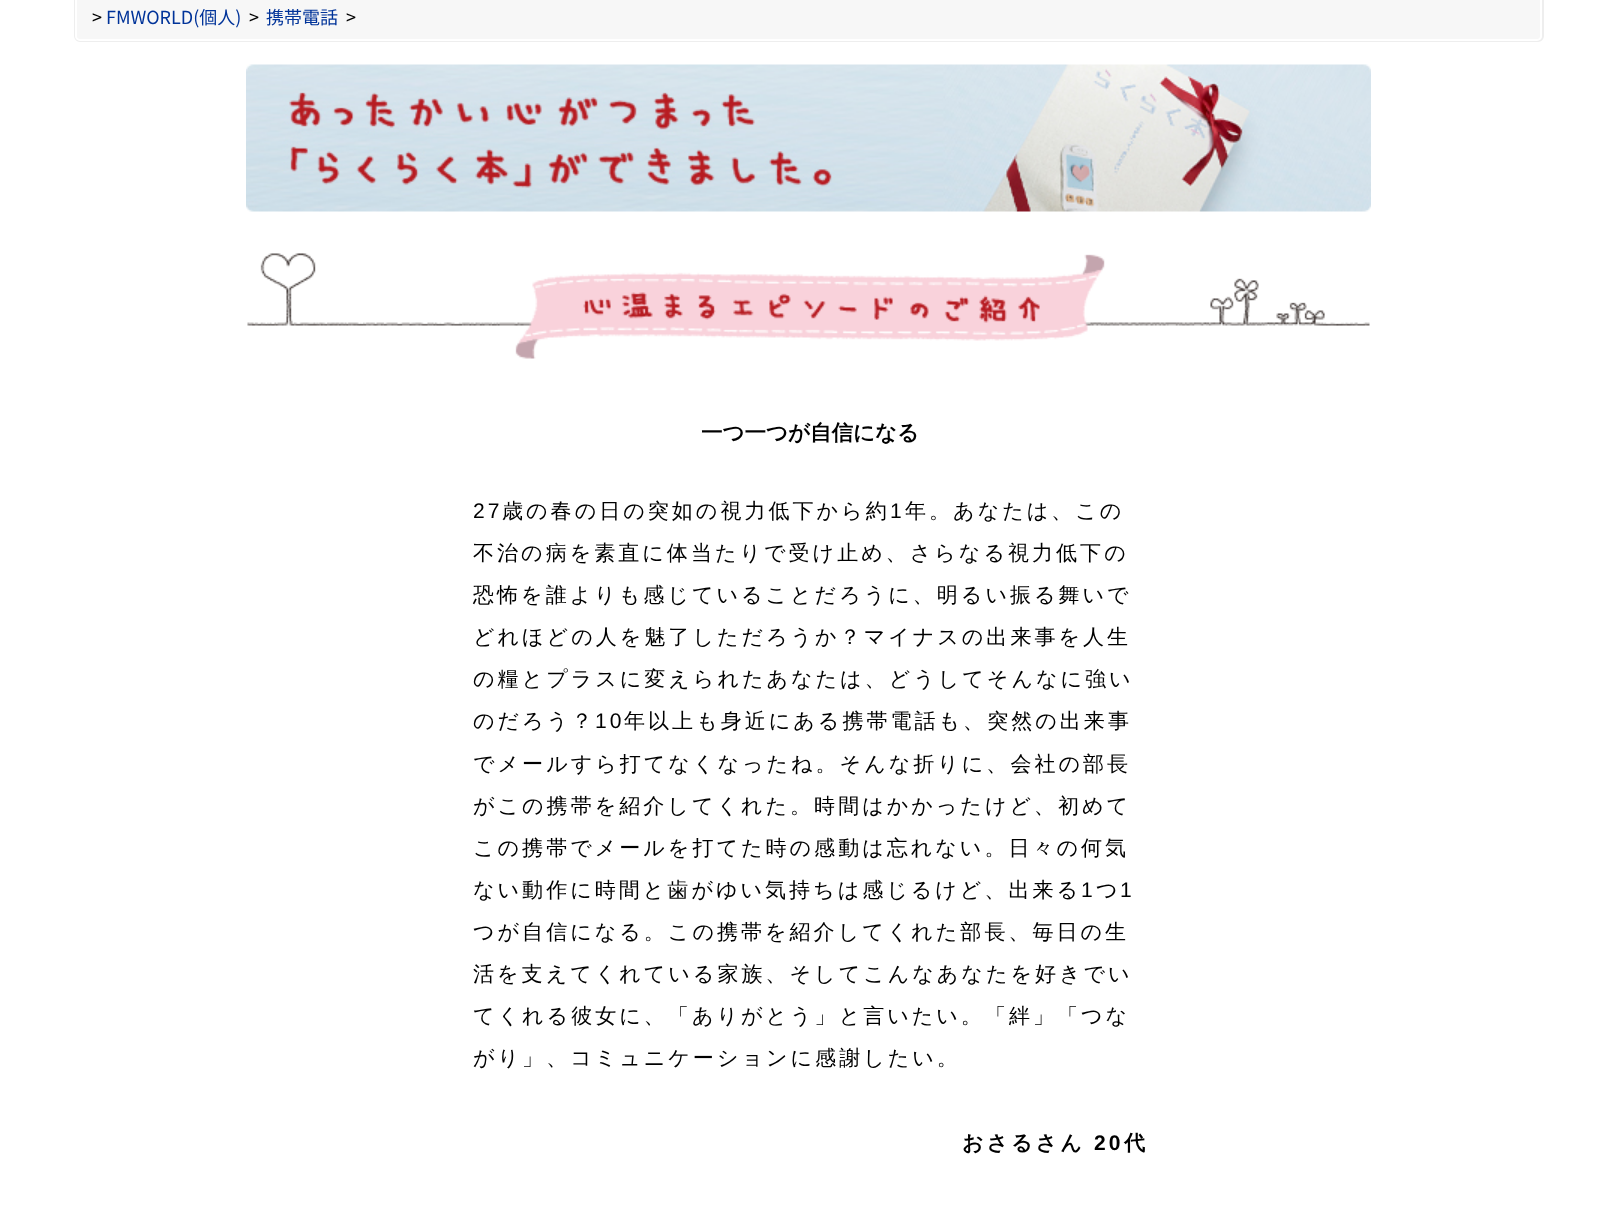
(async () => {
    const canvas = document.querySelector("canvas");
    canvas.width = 1616;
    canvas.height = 1205;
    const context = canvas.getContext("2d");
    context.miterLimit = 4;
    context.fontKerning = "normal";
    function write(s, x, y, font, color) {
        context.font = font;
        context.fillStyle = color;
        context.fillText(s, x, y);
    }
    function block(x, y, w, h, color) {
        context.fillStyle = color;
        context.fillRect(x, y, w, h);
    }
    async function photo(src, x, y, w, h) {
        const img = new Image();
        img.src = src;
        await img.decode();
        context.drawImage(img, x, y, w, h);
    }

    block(0, 0, 1616, 1205, "rgb(255, 255, 255)");
    context.fillStyle = "rgb(247, 247, 247)";
    context.beginPath();
    context.roundRect(75, -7, 1468, 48, 5);
    context.fill();
    context.strokeStyle = "rgb(238, 238, 238)";
    context.lineWidth = 2;
    context.stroke();
    context.beginPath();
    context.roundRect(76, -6, 1465, 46, 4);
    context.strokeStyle = "rgb(255, 255, 255)";
    context.stroke();
    write(">", 92, 24, "18px Noto Sans JP", "rgb(0, 0, 0)");
    write("FMWORLD(個人)", 106, 24, "18px Noto Sans JP", "rgb(0, 51, 153)");
    write(">", 249, 24, "18px Noto Sans JP", "rgb(0, 0, 0)");
    write("携帯電話", 266, 24, "18px Noto Sans JP", "rgb(0, 51, 153)");
    write(">", 346, 24, "18px Noto Sans JP", "rgb(0, 0, 0)");
    await photo("media/1.png", 246, 64, 1125, 148);
    await photo("media/2.png", 247, 253, 1123, 106);
    write("一つ一つが自信になる", 701, 440, "bold 21.5px WenQuanYi Zen Hei", "rgb(0, 0, 0)");
    context.letterSpacing = "3px";
    write("27", 473, 518, "21.05px Liberation Sans", "rgb(0, 0, 0)");
    write("歳の春の日の突如の視力低下から約", 502, 518, "500 21.05px WenQuanYi Zen Hei", "rgb(0, 0, 0)");
    write("1", 890, 518, "21.05px Liberation Sans", "rgb(0, 0, 0)");
    write("年。あなたは、この", 905, 518, "500 21.05px WenQuanYi Zen Hei", "rgb(0, 0, 0)");
    write("不治の病を素直に体当たりで受け止め、さらなる視力低下の", 473, 560, "500 21.05px WenQuanYi Zen Hei", "rgb(0, 0, 0)");
    write("恐怖を誰よりも感じていることだろうに、明るい振る舞いで", 473, 602, "500 21.05px WenQuanYi Zen Hei", "rgb(0, 0, 0)");
    write("どれほどの人を魅了しただろうか？マイナスの出来事を人生", 473, 644, "500 21.05px WenQuanYi Zen Hei", "rgb(0, 0, 0)");
    write("の糧とプラスに変えられたあなたは、どうしてそんなに強い", 473, 686, "500 21.05px WenQuanYi Zen Hei", "rgb(0, 0, 0)");
    write("のだろう？", 473, 728, "500 21.05px WenQuanYi Zen Hei", "rgb(0, 0, 0)");
    write("10", 595, 728, "21.05px Liberation Sans", "rgb(0, 0, 0)");
    write("年以上も身近にある携帯電話も、突然の出来事", 624, 728, "500 21.05px WenQuanYi Zen Hei", "rgb(0, 0, 0)");
    write("でメールすら打てなくなったね。そんな折りに、会社の部長", 473, 771, "500 21.05px WenQuanYi Zen Hei", "rgb(0, 0, 0)");
    write("がこの携帯を紹介してくれた。時間はかかったけど、初めて", 473, 813, "500 21.05px WenQuanYi Zen Hei", "rgb(0, 0, 0)");
    write("この携帯でメールを打てた時の感動は忘れない。日々の何気", 473, 855, "500 21.05px WenQuanYi Zen Hei", "rgb(0, 0, 0)");
    write("ない動作に時間と歯がゆい気持ちは感じるけど、出来る", 473, 897, "500 21.05px WenQuanYi Zen Hei", "rgb(0, 0, 0)");
    write("1", 1081, 897, "21.05px Liberation Sans", "rgb(0, 0, 0)");
    write("つ", 1096, 897, "500 21.05px WenQuanYi Zen Hei", "rgb(0, 0, 0)");
    write("1", 1120, 897, "21.05px Liberation Sans", "rgb(0, 0, 0)");
    write("つが自信になる。この携帯を紹介してくれた部長、毎日の生", 473, 939, "500 21.05px WenQuanYi Zen Hei", "rgb(0, 0, 0)");
    write("活を支えてくれている家族、そしてこんなあなたを好きでい", 473, 981, "500 21.05px WenQuanYi Zen Hei", "rgb(0, 0, 0)");
    write("てくれる彼女に、「ありがとう」と言いたい。「絆」「つな", 473, 1023, "500 21.05px WenQuanYi Zen Hei", "rgb(0, 0, 0)");
    write("がり」、コミュニケーションに感謝したい。", 473, 1065, "500 21.05px WenQuanYi Zen Hei", "rgb(0, 0, 0)");
    write("おさるさん", 962, 1150, "bold 21.05px WenQuanYi Zen Hei", "rgb(0, 0, 0)");
    write("20", 1094, 1150, "bold 21.05px Liberation Sans", "rgb(0, 0, 0)");
    write("代", 1124, 1150, "bold 21.05px WenQuanYi Zen Hei", "rgb(0, 0, 0)");
})();
